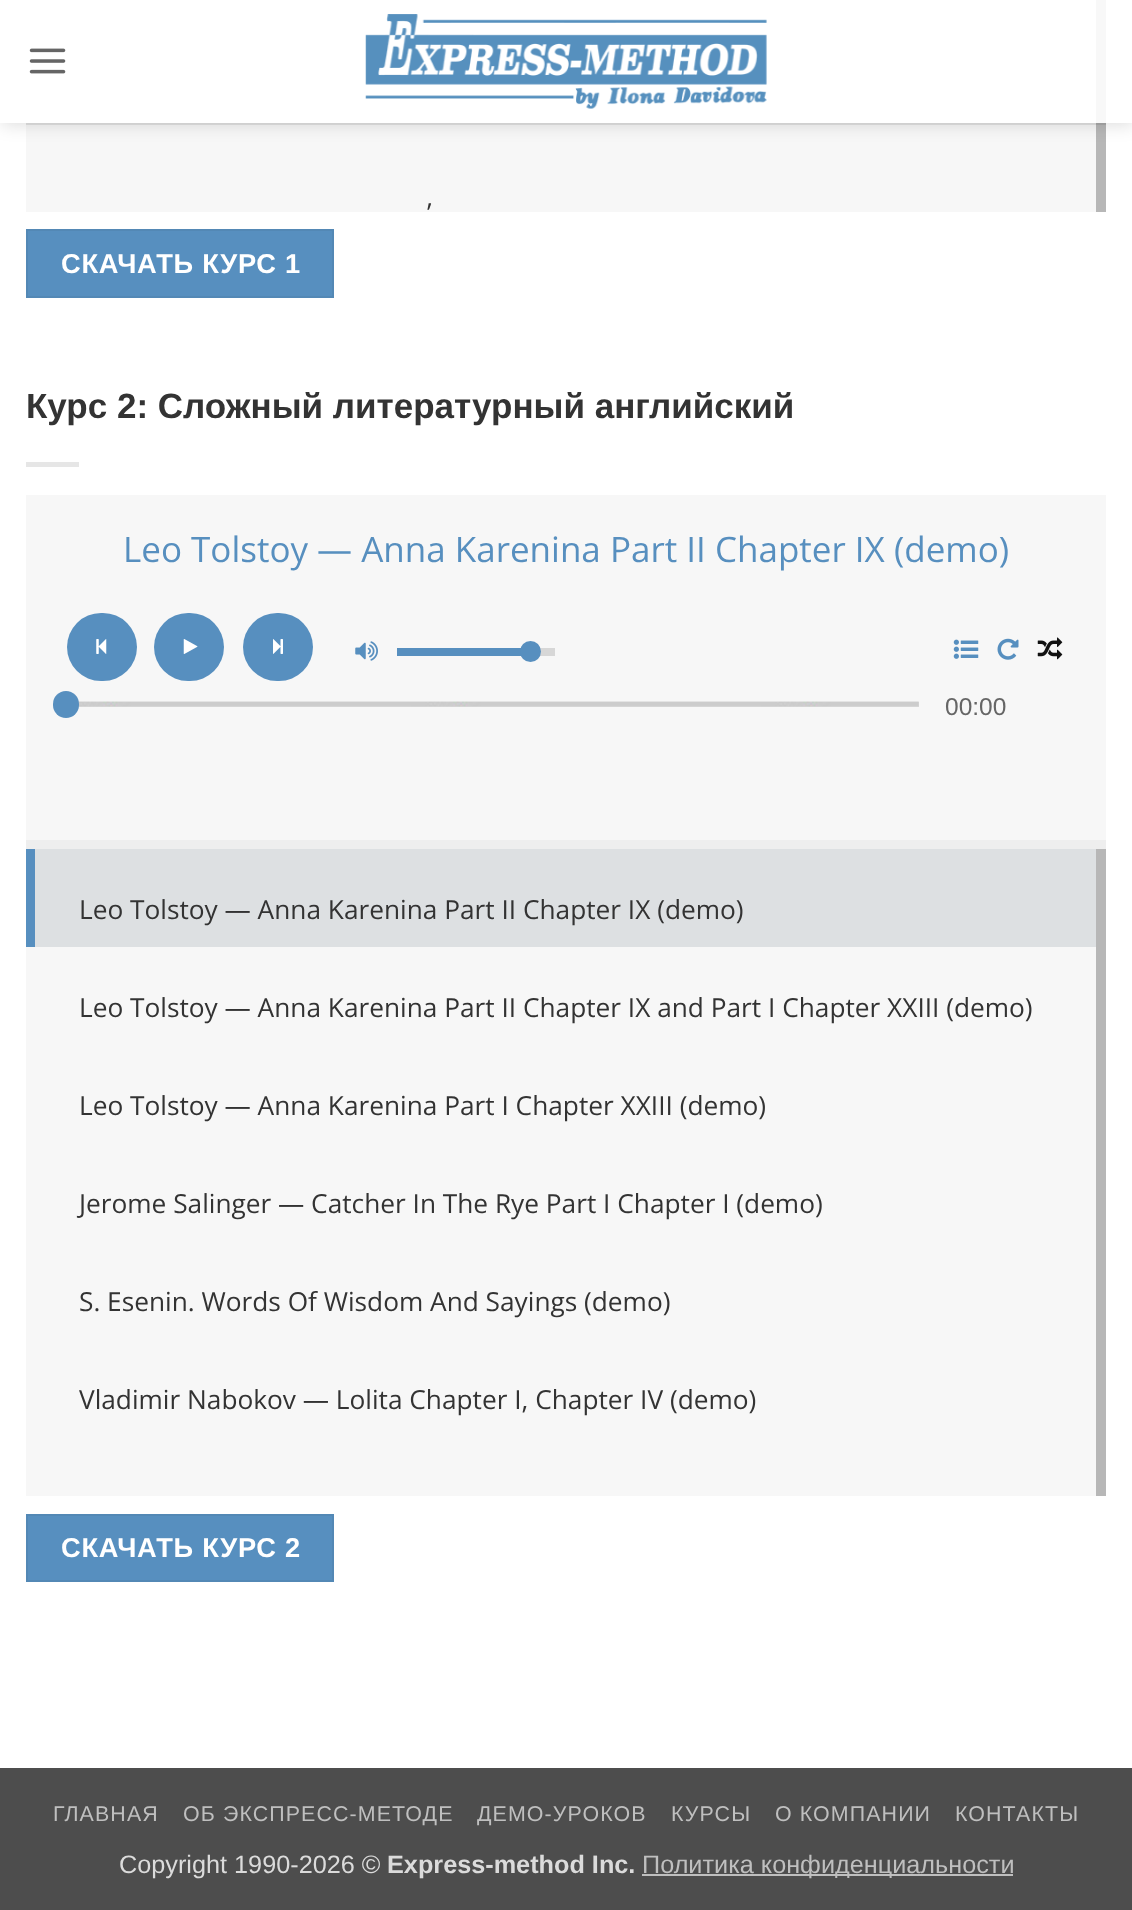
(async () => {
    const canvas = document.querySelector("canvas");
    canvas.width = 1132;
    canvas.height = 1910;
    const context = canvas.getContext("2d");
    context.miterLimit = 4;
    context.fontKerning = "normal";
    function write(s, x, y, font, color) {
        context.font = font;
        context.fillStyle = color;
        context.fillText(s, x, y);
    }
    function block(x, y, w, h, color) {
        context.fillStyle = color;
        context.fillRect(x, y, w, h);
    }
    function card(x, y, w, h, r, color) {
        context.fillStyle = color;
        context.beginPath();
        context.roundRect(x, y, w, h, r);
        context.fill();
    }
    async function photo(src, x, y, w, h) {
        const img = new Image();
        img.src = src;
        await img.decode();
        context.drawImage(img, x, y, w, h);
    }

    block(0, 0, 1132, 1910, "rgb(255, 255, 255)");
    block(26, 0, 1070, 212, "rgb(247, 247, 247)");
    block(1096, 0, 10, 212, "rgb(183, 183, 183)");
    context.save();
    context.beginPath();
    context.moveTo(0, 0);
    context.lineTo(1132, 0);
    context.lineTo(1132, 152);
    context.lineTo(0, 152);
    context.closePath();
    context.moveTo(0, 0);
    context.lineTo(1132, 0);
    context.lineTo(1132, 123);
    context.lineTo(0, 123);
    context.closePath();
    context.clip("evenodd");
    context.fillStyle = "rgba(0, 0, 0, 0.15)";
    context.filter = "blur(9px)";
    context.beginPath();
    context.rect(2, 2, 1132, 122);
    context.fill();
    context.filter = "none";
    context.restore();
    block(0, 0, 1132, 123, "rgba(255, 255, 255, 0.9)");
    await photo("media/1.png", 29, 48, 37, 26);
    await photo("media/2.png", 365, 14, 402, 95);
    block(26, 123, 1080, 2, "rgba(51, 51, 51, 0.1)");
    write("’", 427, 222, "26.25px Open Sans", "rgb(51, 51, 51)");
    context.fillStyle = "rgb(87, 143, 191)";
    context.beginPath();
    context.rect(27, 230, 306, 67);
    context.fill();
    context.strokeStyle = "rgb(83, 136, 181)";
    context.lineWidth = 2;
    context.stroke();
    context.letterSpacing = "0.75px";
    write("СКАЧАТЬ КУРС 1", 61, 273, "bold 27.25px Liberation Sans", "rgb(255, 255, 255)");
    context.letterSpacing = "0px";
    write("Курс 2: Сложный литературный английский", 26, 418, "bold 35px Liberation Sans", "rgb(51, 51, 51)");
    block(26, 462, 53, 5, "rgb(230, 230, 230)");
    block(26, 840, 1080, 9, "rgb(238, 238, 238)");
    block(26, 495, 1080, 345, "rgb(247, 247, 247)");
    write("Leo Tolstoy — Anna Karenina Part II Chapter IX (demo)", 123, 562, "35px Open Sans", "rgb(87, 143, 191)");
    card(67, 613, 70, 68, 34, "rgb(87, 143, 191)");
    await photo("media/3.png", 96, 639, 11, 15);
    card(154, 613, 70, 68, 34, "rgb(87, 143, 191)");
    await photo("media/4.png", 183, 639, 15, 15);
    card(243, 613, 70, 68, 34, "rgb(87, 143, 191)");
    await photo("media/5.png", 273, 639, 10, 15);
    await photo("media/6.png", 355, 641, 23, 20);
    block(540, 648, 15, 8, "rgb(215, 215, 215)");
    block(397, 648, 126, 8, "rgb(87, 143, 191)");
    context.beginPath();
    context.arc(530.5, 651.5, 10.5, 0, Math.PI * 2);
    context.fill();
    await photo("media/7.png", 953, 639, 26, 20);
    await photo("media/8.png", 997, 638, 22, 22);
    await photo("media/9.png", 1037, 637, 26, 23);
    block(78, 702, 841, 5, "rgb(221, 221, 221)");
    await photo("media/10.png", 78, 701, 841, 6);
    card(53, 691, 26, 27, 13, "rgb(87, 143, 191)");
    write("00:00", 945, 715, "24.5px Liberation Sans", "rgb(102, 102, 102)");
    block(26, 947, 1070, 549, "rgb(247, 247, 247)");
    block(1096, 849, 10, 647, "rgb(183, 183, 183)");
    block(35, 849, 1061, 98, "rgb(221, 224, 226)");
    block(26, 849, 9, 98, "rgb(87, 143, 191)");
    write("Leo Tolstoy — Anna Karenina Part II Chapter IX (demo)", 79, 919, "26.25px Open Sans", "rgb(51, 51, 51)");
    write("Leo Tolstoy — Anna Karenina Part II Chapter IX and Part I Chapter XXIII (demo)", 79, 1017, "26.25px Open Sans", "rgb(51, 51, 51)");
    write("Leo Tolstoy — Anna Karenina Part I Chapter XXIII (demo)", 79, 1115, "26.25px Open Sans", "rgb(51, 51, 51)");
    write("Jerome Salinger — Catcher In The Rye Part I Chapter I (demo)", 79, 1213, "26.25px Open Sans", "rgb(51, 51, 51)");
    write("S. Esenin. Words Of Wisdom And Sayings (demo)", 79, 1311, "26.25px Open Sans", "rgb(51, 51, 51)");
    write("Vladimir Nabokov — Lolita Chapter I, Chapter IV (demo)", 79, 1409, "26.25px Open Sans", "rgb(51, 51, 51)");
    context.fillStyle = "rgb(87, 143, 191)";
    context.beginPath();
    context.rect(27, 1515, 306, 66);
    context.fill();
    context.stroke();
    context.letterSpacing = "0.75px";
    write("СКАЧАТЬ КУРС 2", 61, 1557, "bold 27.25px Liberation Sans", "rgb(255, 255, 255)");
    block(0, 1768, 1132, 142, "rgb(77, 77, 77)");
    context.letterSpacing = "1.1px";
    write("ГЛАВНАЯ", 53, 1821, "21.4px Liberation Sans", "rgb(191, 191, 191)");
    write("ОБ ЭКСПРЕСС-МЕТОДЕ", 183, 1821, "21.4px Liberation Sans", "rgb(191, 191, 191)");
    write("ДЕМО-УРОКОВ", 477, 1821, "21.4px Liberation Sans", "rgb(191, 191, 191)");
    write("КУРСЫ", 671, 1821, "21.4px Liberation Sans", "rgb(191, 191, 191)");
    write("О КОМПАНИИ", 775, 1821, "21.4px Liberation Sans", "rgb(191, 191, 191)");
    write("КОНТАКТЫ", 955, 1821, "21.4px Liberation Sans", "rgb(191, 191, 191)");
    context.letterSpacing = "0px";
    write("Copyright 1990-2026 ©", 119, 1873, "25.25px Liberation Sans", "rgb(219, 219, 219)");
    write("Express-method Inc.", 387, 1873, "bold 25.25px Liberation Sans", "rgb(219, 219, 219)");
    block(642, 1874, 371, 2, "rgb(191, 191, 191)");
    write("Политика конфиденциальности", 642, 1873, "25.25px Liberation Sans", "rgb(191, 191, 191)");
})();
